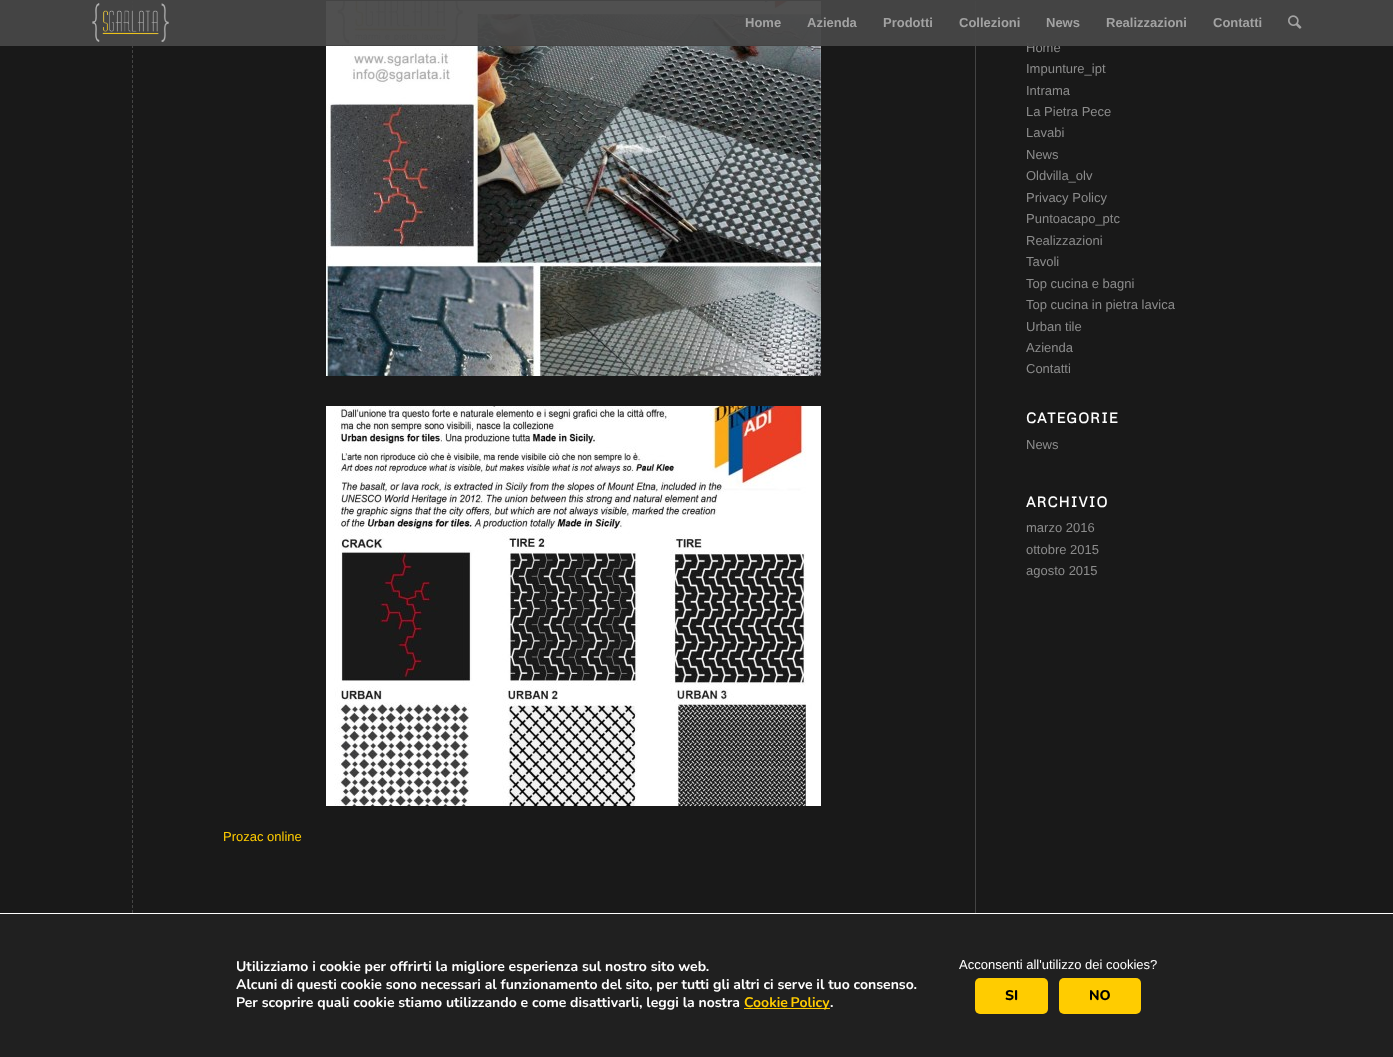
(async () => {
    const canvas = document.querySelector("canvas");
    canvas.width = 1393;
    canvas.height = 1057;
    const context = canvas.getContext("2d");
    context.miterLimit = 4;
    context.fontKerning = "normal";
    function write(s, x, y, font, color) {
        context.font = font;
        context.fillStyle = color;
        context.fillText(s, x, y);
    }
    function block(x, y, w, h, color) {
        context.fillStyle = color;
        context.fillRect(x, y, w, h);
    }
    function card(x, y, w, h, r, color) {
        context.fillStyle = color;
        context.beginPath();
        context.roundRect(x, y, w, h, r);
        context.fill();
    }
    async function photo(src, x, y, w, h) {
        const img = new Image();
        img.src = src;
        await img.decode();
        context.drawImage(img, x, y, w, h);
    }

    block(0, 0, 1393, 1057, "rgb(25, 25, 25)");
    write("Home", 1026, 52, "13px Liberation Sans", "rgb(140, 140, 140)");
    block(975, 0, 1, 913, "rgb(68, 68, 68)");
    context.beginPath();
    context.moveTo(132.5, -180);
    context.lineTo(132.5, 959);
    context.strokeStyle = "rgb(68, 68, 68)";
    context.setLineDash([3, 2]);
    context.stroke();
    await photo("media/3.png", 326, 1, 495, 375);
    block(0, 1, 1393, 44, "rgba(71, 71, 71, 0.95)");
    block(0, 0, 1393, 1, "rgb(68, 68, 68)");
    block(0, 45, 1393, 1, "rgb(68, 68, 68)");
    await photo("media/1.png", 92, 3, 77, 39);
    write("Home", 745, 27, "bold 13px Liberation Sans", "rgb(163, 163, 163)");
    write("Azienda", 807, 27, "bold 13px Liberation Sans", "rgb(163, 163, 163)");
    write("Prodotti", 883, 27, "bold 13px Liberation Sans", "rgb(163, 163, 163)");
    write("Collezioni", 959, 27, "bold 13px Liberation Sans", "rgb(163, 163, 163)");
    write("News", 1046, 27, "bold 13px Liberation Sans", "rgb(163, 163, 163)");
    write("Realizzazioni", 1106, 27, "bold 13px Liberation Sans", "rgb(163, 163, 163)");
    write("Contatti", 1213, 27, "bold 13px Liberation Sans", "rgb(163, 163, 163)");
    await photo("media/2.png", 1288, 15, 14, 14);
    write("Impunture_ipt", 1026, 73, "13px Liberation Sans", "rgb(140, 140, 140)");
    write("Intrama", 1026, 95, "13px Liberation Sans", "rgb(140, 140, 140)");
    write("La Pietra Pece", 1026, 116, "13px Liberation Sans", "rgb(140, 140, 140)");
    write("Lavabi", 1026, 137, "13px Liberation Sans", "rgb(140, 140, 140)");
    write("News", 1026, 159, "13px Liberation Sans", "rgb(140, 140, 140)");
    write("Oldvilla_olv", 1026, 180, "13px Liberation Sans", "rgb(140, 140, 140)");
    write("Privacy Policy", 1026, 202, "13px Liberation Sans", "rgb(140, 140, 140)");
    write("Puntoacapo_ptc", 1026, 223, "13px Liberation Sans", "rgb(140, 140, 140)");
    write("Realizzazioni", 1026, 245, "13px Liberation Sans", "rgb(140, 140, 140)");
    write("Tavoli", 1026, 266, "13px Liberation Sans", "rgb(140, 140, 140)");
    write("Top cucina e bagni", 1026, 288, "13px Liberation Sans", "rgb(140, 140, 140)");
    write("Top cucina in pietra lavica", 1026, 309, "13px Liberation Sans", "rgb(140, 140, 140)");
    write("Urban tile", 1026, 331, "13px Liberation Sans", "rgb(140, 140, 140)");
    write("Azienda", 1026, 352, "13px Liberation Sans", "rgb(140, 140, 140)");
    write("Contatti", 1026, 373, "13px Liberation Sans", "rgb(140, 140, 140)");
    context.letterSpacing = "1px";
    write("CATEGORIE", 1026, 423, "bold 14.25px Metrophobic", "rgb(255, 255, 255)");
    context.letterSpacing = "0px";
    write("News", 1026, 449, "13px Liberation Sans", "rgb(140, 140, 140)");
    context.letterSpacing = "1px";
    write("ARCHIVIO", 1026, 507, "bold 14.25px Metrophobic", "rgb(255, 255, 255)");
    context.letterSpacing = "0px";
    write("marzo 2016", 1026, 532, "13px Liberation Sans", "rgb(140, 140, 140)");
    write("ottobre 2015", 1026, 554, "13px Liberation Sans", "rgb(140, 140, 140)");
    write("agosto 2015", 1026, 575, "13px Liberation Sans", "rgb(140, 140, 140)");
    await photo("media/4.png", 326, 406, 495, 400);
    write("Prozac online", 223, 841, "13px Liberation Sans", "rgb(255, 204, 0)");
    block(0, 914, 1393, 143, "rgb(32, 32, 32)");
    block(0, 913, 1393, 1, "rgb(255, 255, 255)");
    write("Utilizziamo i cookie per offrirti la migliore esperienza sul nostro sito web.", 236, 971, "bold 14px Nunito", "rgb(255, 255, 255)");
    write("Alcuni di questi cookie sono necessari al funzionamento del sito, per tutti gli altri ci serve il tuo consenso.", 236, 989, "bold 14px Nunito", "rgb(255, 255, 255)");
    write("Per scoprire quali cookie stiamo utilizzando e come disattivarli, leggi la nostra", 236, 1007, "bold 14px Nunito", "rgb(255, 255, 255)");
    block(744, 1008, 86, 1, "rgb(255, 204, 0)");
    context.wordSpacing = "-1px";
    write("Cookie Policy", 744, 1007, "bold 14px Nunito", "rgb(255, 204, 0)");
    context.wordSpacing = "0px";
    write(".", 830, 1007, "bold 14px Nunito", "rgb(255, 255, 255)");
    write("Acconsenti all'utilizzo dei cookies?", 959, 969, "13px Liberation Sans", "rgb(255, 255, 255)");
    card(975, 978, 73, 36, 5, "rgb(255, 204, 0)");
    write("SI", 1005, 1000, "800 14px Nunito", "rgb(0, 0, 0)");
    card(1059, 978, 82, 36, 5, "rgb(255, 204, 0)");
    write("NO", 1089, 1000, "800 14px Nunito", "rgb(0, 0, 0)");
})();
